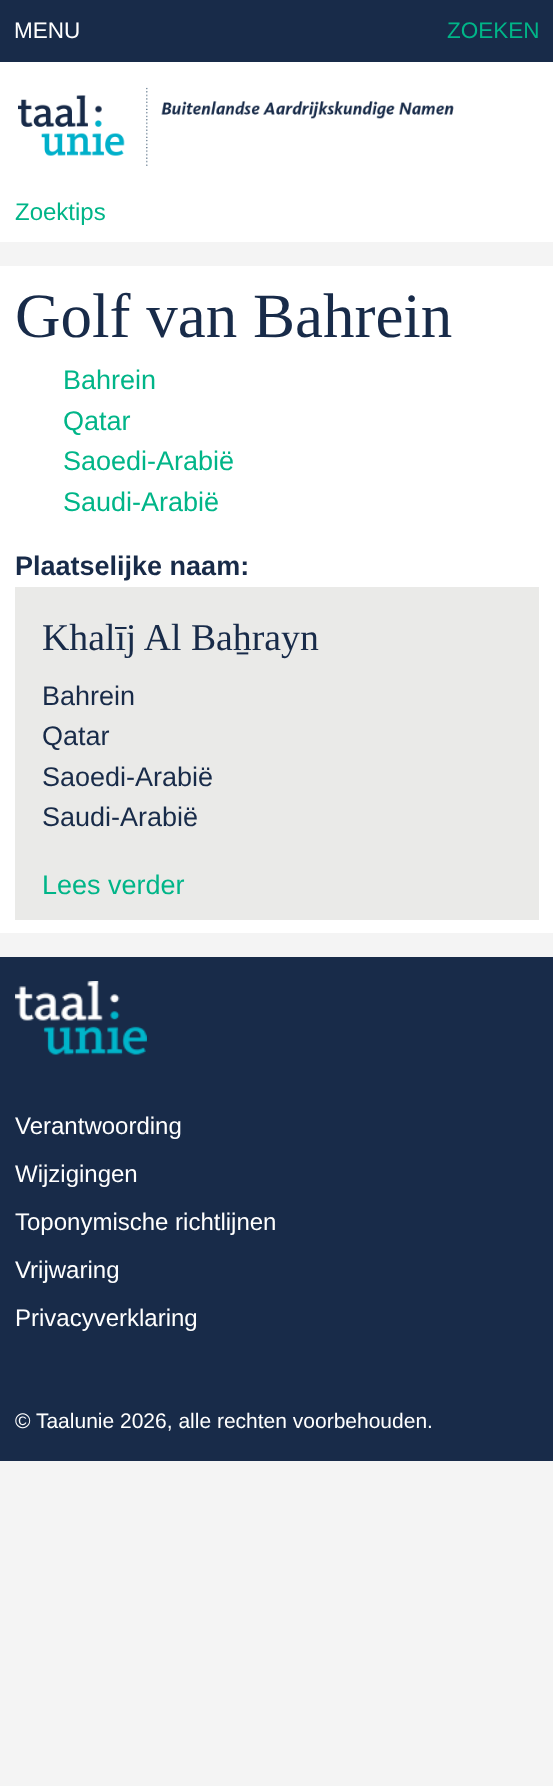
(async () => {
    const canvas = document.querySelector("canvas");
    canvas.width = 553;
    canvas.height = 1786;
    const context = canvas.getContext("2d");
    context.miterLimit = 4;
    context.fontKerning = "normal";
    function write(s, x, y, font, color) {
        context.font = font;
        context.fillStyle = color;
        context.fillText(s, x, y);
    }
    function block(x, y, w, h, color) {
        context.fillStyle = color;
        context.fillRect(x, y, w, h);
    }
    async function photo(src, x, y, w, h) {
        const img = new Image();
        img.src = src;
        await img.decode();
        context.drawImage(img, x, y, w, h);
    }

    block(0, 0, 553, 1786, "rgb(244, 244, 244)");
    block(0, 0, 553, 62, "rgb(24, 43, 73)");
    write("MENU", 14, 38, "22.5px Liberation Sans", "rgb(255, 255, 255)");
    write("ZOEKEN", 447, 38, "22.5px Liberation Sans", "rgb(0, 181, 136)");
    block(0, 62, 553, 180, "rgb(255, 255, 255)");
    await photo("media/1.png", 18, 87, 436, 79);
    write("Zoektips", 15, 220, "24px Liberation Sans", "rgb(0, 181, 136)");
    block(0, 266, 553, 667, "rgb(255, 255, 255)");
    write("Golf van Bahrein", 15, 337, "63px Liberation Serif", "rgb(24, 43, 73)");
    write("Bahrein", 63, 389, "27px Liberation Sans", "rgb(0, 181, 136)");
    write("Qatar", 63, 430, "27px Liberation Sans", "rgb(0, 181, 136)");
    write("Saoedi-Arabië", 63, 470, "27px Liberation Sans", "rgb(0, 181, 136)");
    write("Saudi-Arabië", 63, 511, "27px Liberation Sans", "rgb(0, 181, 136)");
    write("Plaatselijke naam:", 15, 575, "bold 27px Liberation Sans", "rgb(24, 43, 73)");
    block(15, 587, 524, 333, "rgb(234, 234, 232)");
    write("Khalīj Al Baẖrayn", 42, 650, "37.75px Liberation Serif", "rgb(24, 43, 73)");
    write("Bahrein", 42, 705, "27px Liberation Sans", "rgb(24, 43, 73)");
    write("Qatar", 42, 745, "27px Liberation Sans", "rgb(24, 43, 73)");
    write("Saoedi-Arabië", 42, 786, "27px Liberation Sans", "rgb(24, 43, 73)");
    write("Saudi-Arabië", 42, 826, "27px Liberation Sans", "rgb(24, 43, 73)");
    write("Lees verder", 42, 894, "27px Liberation Sans", "rgb(0, 181, 136)");
    block(0, 957, 553, 504, "rgb(24, 43, 73)");
    await photo("media/2.png", 15, 981, 132, 74);
    write("Verantwoording", 15, 1134, "24px Liberation Sans", "rgb(255, 255, 255)");
    write("Wijzigingen", 15, 1182, "24px Liberation Sans", "rgb(255, 255, 255)");
    write("Toponymische richtlijnen", 15, 1230, "24px Liberation Sans", "rgb(255, 255, 255)");
    write("Vrijwaring", 15, 1278, "24px Liberation Sans", "rgb(255, 255, 255)");
    write("Privacyverklaring", 15, 1326, "24px Liberation Sans", "rgb(255, 255, 255)");
    write("© Taalunie 2026, alle rechten voorbehouden.", 15, 1428, "21px Liberation Sans", "rgb(255, 255, 255)");
})();
